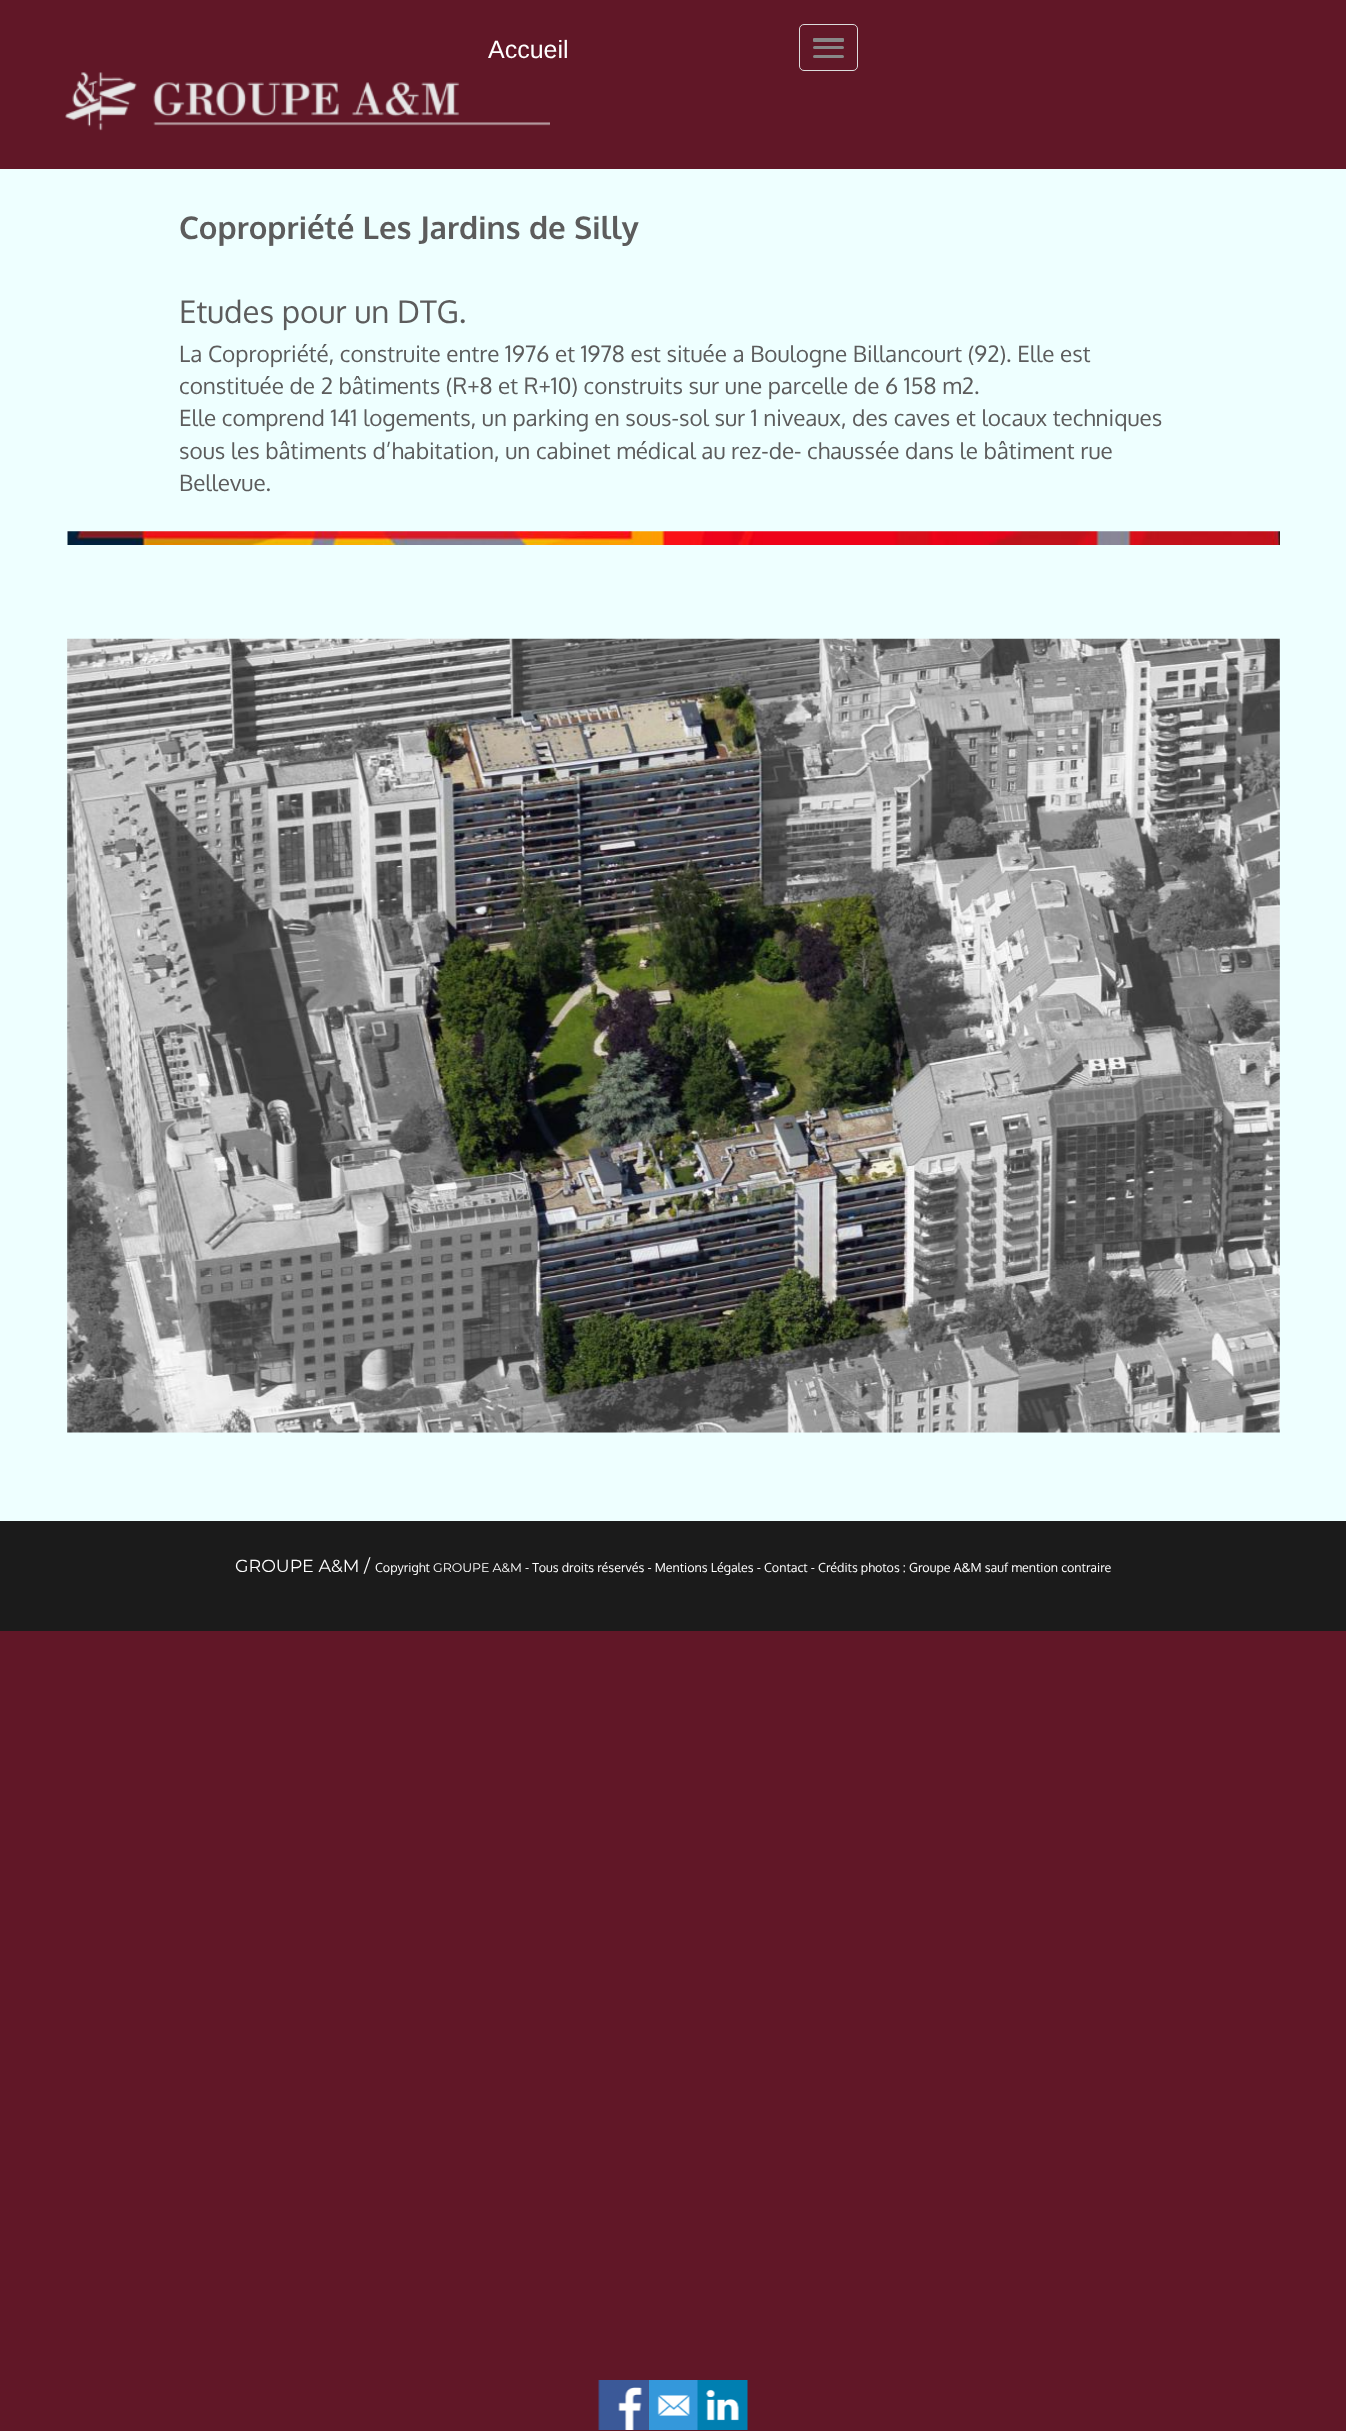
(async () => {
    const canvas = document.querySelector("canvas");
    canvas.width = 1346;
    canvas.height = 2431;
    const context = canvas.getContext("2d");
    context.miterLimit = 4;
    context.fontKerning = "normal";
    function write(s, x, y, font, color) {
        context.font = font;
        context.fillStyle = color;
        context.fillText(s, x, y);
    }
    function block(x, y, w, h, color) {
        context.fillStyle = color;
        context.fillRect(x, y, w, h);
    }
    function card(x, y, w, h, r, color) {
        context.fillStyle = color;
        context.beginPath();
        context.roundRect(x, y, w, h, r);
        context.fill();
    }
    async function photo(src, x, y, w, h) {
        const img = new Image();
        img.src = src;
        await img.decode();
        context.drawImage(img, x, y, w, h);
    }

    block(0, 0, 1346, 2431, "rgb(97, 23, 39)");
    write("Accueil", 488, 58, "25px Liberation Sans", "rgb(255, 255, 255)");
    context.beginPath();
    context.roundRect(799.5, 24.5, 58, 46, 4.5);
    context.strokeStyle = "rgb(221, 221, 221)";
    context.stroke();
    card(813, 38, 31, 4, 1, "rgb(136, 136, 136)");
    card(813, 46, 31, 3, 1.5, "rgb(136, 136, 136)");
    card(813, 55, 31, 3, 1.5, "rgb(136, 136, 136)");
    await photo("media/1.png", 65, 72, 485, 59);
    block(0, 169, 1346, 1352, "rgb(238, 255, 255)");
    write("Copropriété Les Jardins de Silly", 179, 239, "bold 31.25px Oxygen", "rgb(92, 92, 92)");
    write("Etudes pour un DTG.", 179, 323, "31.25px Oxygen", "rgb(92, 92, 92)");
    write("La Copropriété, construite entre 1976 et 1978 est située a Boulogne Billancourt (92). Elle est", 179, 362, "22.5px Oxygen", "rgb(92, 92, 92)");
    write("constituée de 2 bâtiments (R+8 et R+10) construits sur une parcelle de 6 158 m2.", 179, 394, "22.5px Oxygen", "rgb(92, 92, 92)");
    write("Elle comprend 141 logements, un parking en sous-sol sur 1 niveaux, des caves et locaux techniques", 179, 426, "22.5px Oxygen", "rgb(92, 92, 92)");
    write("sous les bâtiments d’habitation, un cabinet médical au rez-de- chaussée dans le bâtiment rue", 179, 459, "22.5px Oxygen", "rgb(92, 92, 92)");
    write("Bellevue.", 179, 491, "22.5px Oxygen", "rgb(92, 92, 92)");
    await photo("media/2.png", 67, 531, 1213, 14);
    await photo("media/3.png", 67, 638, 1213, 795);
    block(0, 1521, 1346, 110, "rgb(27, 27, 27)");
    write("GROUPE A&M /", 235, 1572, "17.5px Montserrat", "rgb(255, 255, 255)");
    write("Copyright", 375, 1572, "12.5px Oxygen", "rgb(255, 255, 255)");
    write("GROUPE A&M", 433, 1572, "12.5px Montserrat", "rgb(255, 255, 255)");
    write("- Tous droits réservés - Mentions Légales - Contact - Crédits photos : Groupe A&M sauf mention contraire", 525, 1572, "12.5px Oxygen", "rgb(255, 255, 255)");
    await photo("media/4.png", 598, 2380, 51, 50);
    await photo("media/5.png", 648, 2380, 50, 50);
    await photo("media/6.png", 697, 2380, 51, 50);
})();
